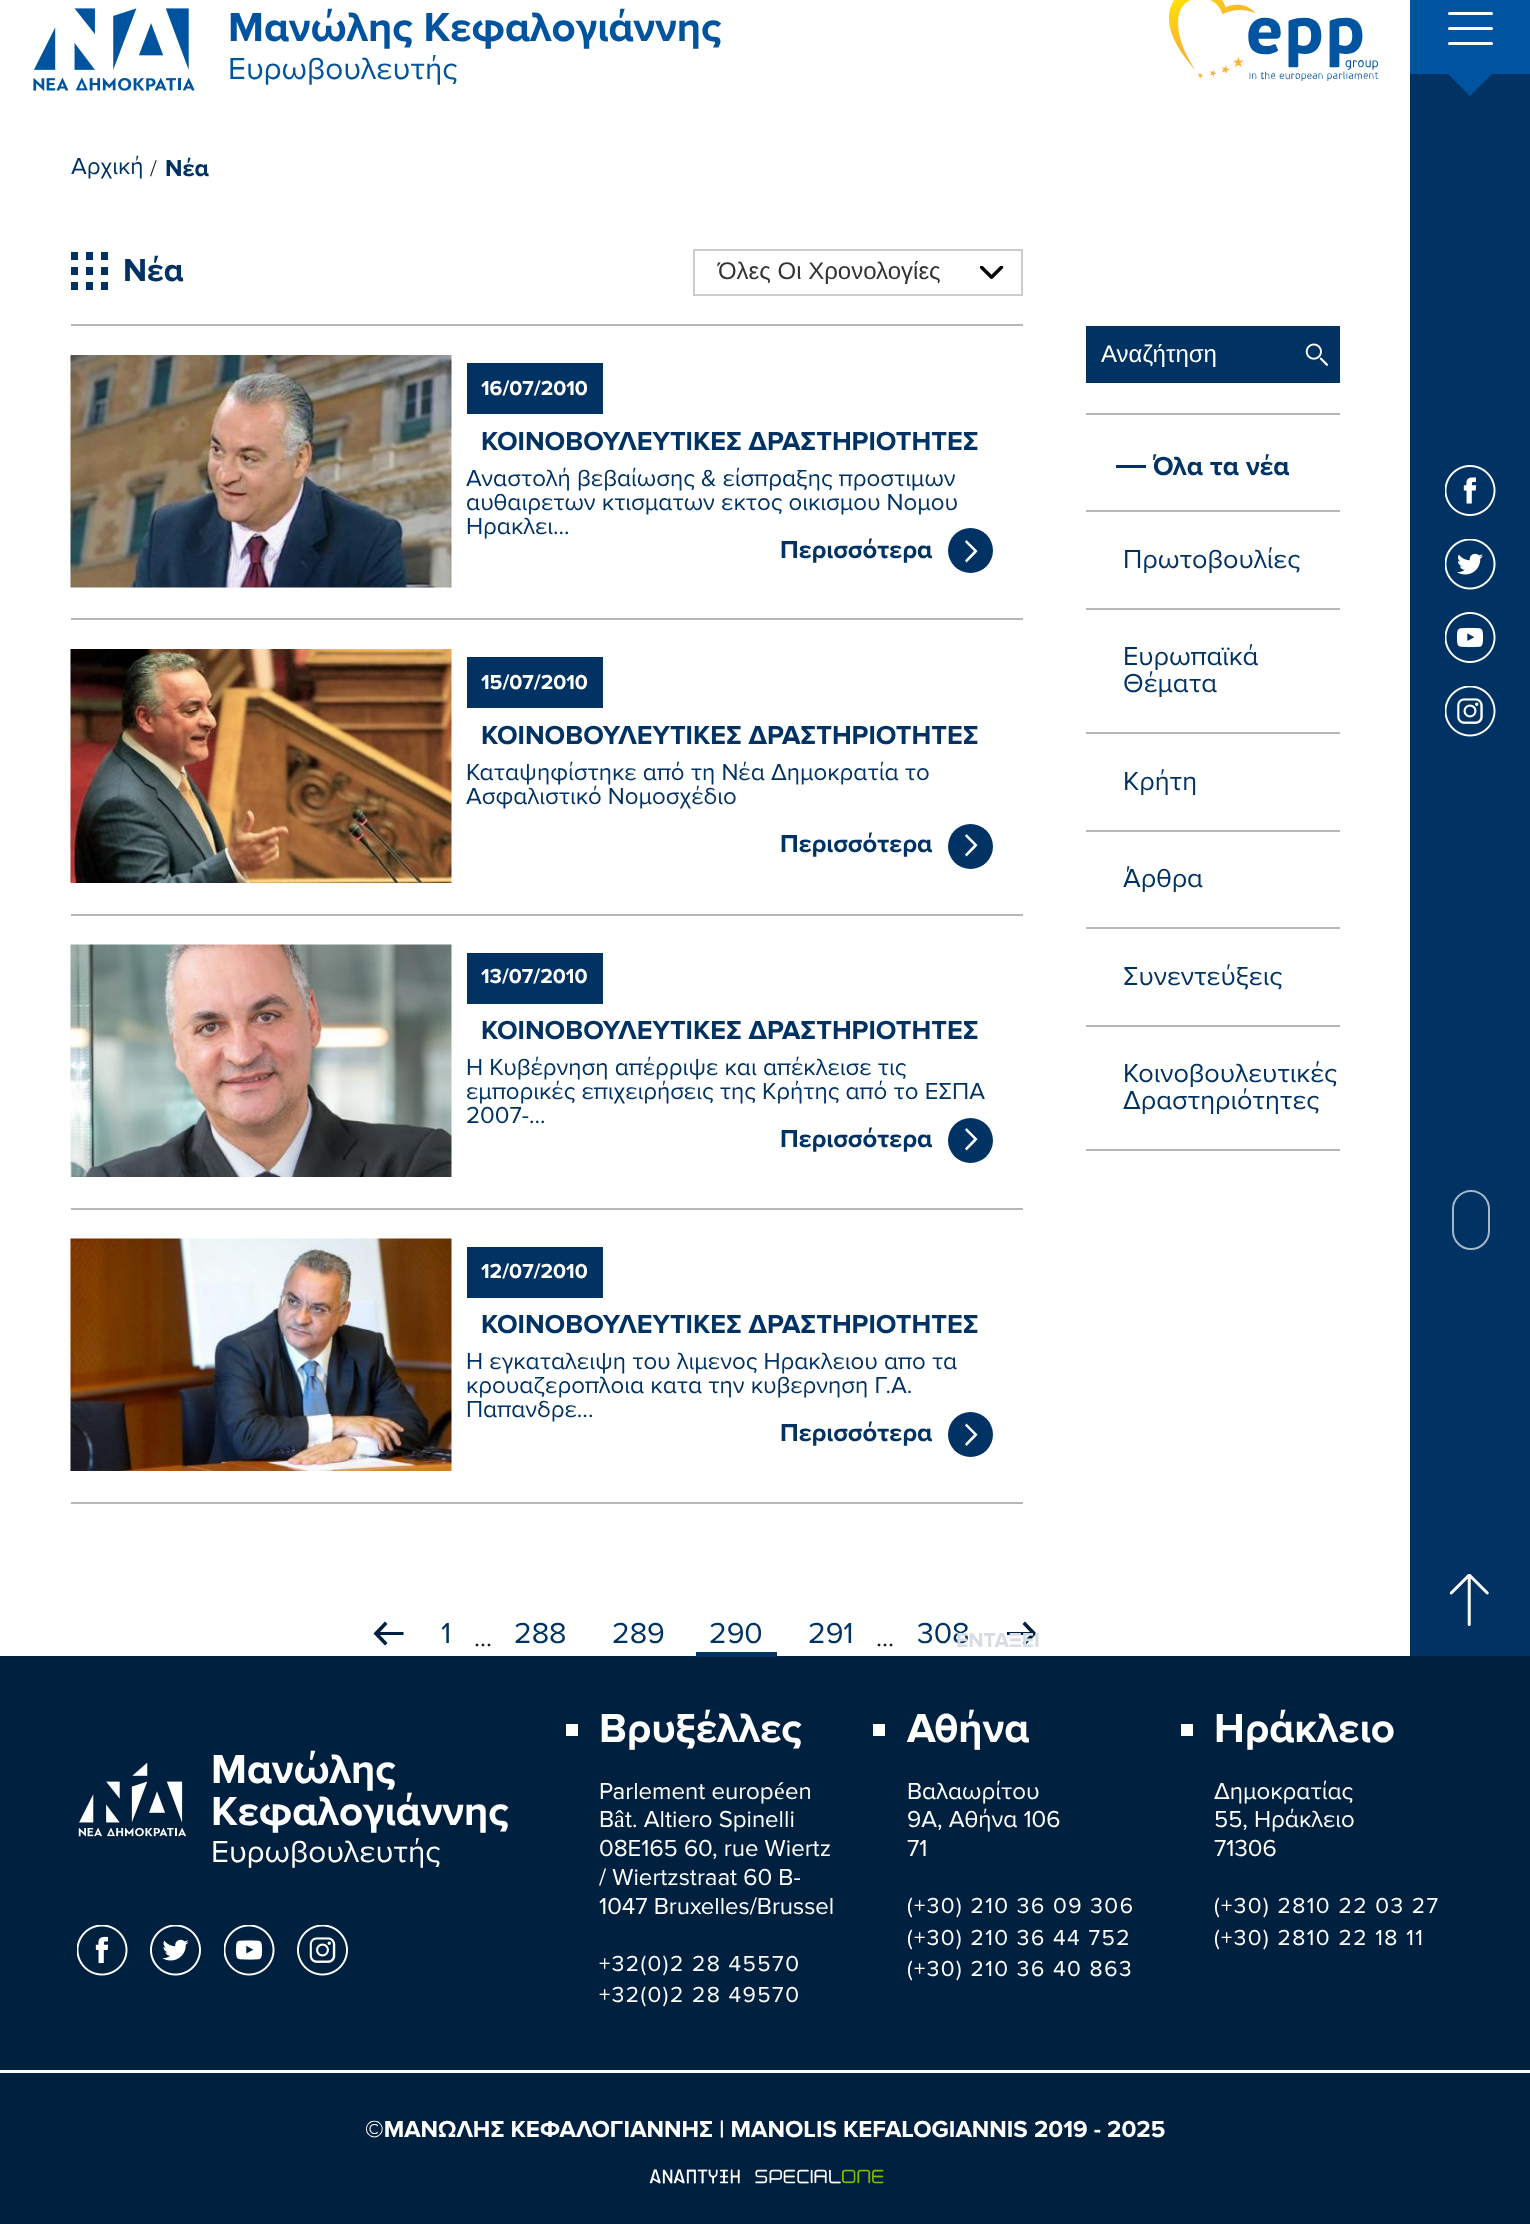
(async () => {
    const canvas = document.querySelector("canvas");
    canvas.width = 1530;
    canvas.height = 2224;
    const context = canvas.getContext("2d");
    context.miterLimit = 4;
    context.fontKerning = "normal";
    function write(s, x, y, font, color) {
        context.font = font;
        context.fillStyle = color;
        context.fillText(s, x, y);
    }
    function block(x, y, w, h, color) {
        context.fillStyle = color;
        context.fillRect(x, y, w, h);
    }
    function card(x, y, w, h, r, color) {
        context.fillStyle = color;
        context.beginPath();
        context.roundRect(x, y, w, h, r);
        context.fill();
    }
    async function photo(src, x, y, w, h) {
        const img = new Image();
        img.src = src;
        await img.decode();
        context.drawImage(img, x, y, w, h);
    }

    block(0, 0, 1530, 2224, "rgb(255, 255, 255)");
    await photo("media/1.png", 33, 8, 162, 83);
    write("Μανώλης Κεφαλογιάννης", 228, 41, "bold 42px Proxima Nova", "rgb(0, 83, 159)");
    write("Ευρωβουλευτής", 228, 79, "31.5px Proxima Nova", "rgb(0, 83, 159)");
    await photo("media/2.png", 1168, 0, 211, 81);
    block(1410, 74, 120, 1582, "rgb(0, 50, 99)");
    block(1410, 0, 120, 74, "rgb(0, 83, 159)");
    card(1448, 27, 45, 3, 1.5, "rgb(255, 255, 255)");
    card(1448, 12, 45, 3, 1.5, "rgb(255, 255, 255)");
    card(1448, 42, 45, 3, 1.5, "rgb(255, 255, 255)");
    context.fillStyle = "rgb(0, 83, 159)";
    context.beginPath();
    context.moveTo(1448, 74);
    context.lineTo(1492, 74);
    context.lineTo(1470, 96);
    context.closePath();
    context.fill();
    await photo("media/3.png", 1445, 465, 51, 51);
    await photo("media/4.png", 1445, 539, 51, 51);
    await photo("media/5.png", 1445, 612, 51, 51);
    await photo("media/6.png", 1445, 686, 51, 51);
    context.beginPath();
    context.roundRect(1453, 1191, 36, 58, 18);
    context.strokeStyle = "rgb(166, 183, 200)";
    context.lineWidth = 2;
    context.stroke();
    await photo("media/7.png", 1449, 1574, 40, 52);
    write("Αρχική", 71, 174, "24px Proxima Nova", "rgb(0, 50, 99)");
    write("/", 150, 176, "24px Liberation Serif", "rgb(26, 26, 26)");
    write("Νέα", 165, 176, "bold 24px Proxima Nova", "rgb(0, 50, 99)");
    block(71, 324, 952, 2, "rgb(183, 183, 183)");
    await photo("media/8.png", 71, 252, 37, 38);
    write("Νέα", 123, 281, "bold 33px Proxima Nova", "rgb(0, 50, 99)");
    context.strokeStyle = "rgb(204, 204, 204)";
    context.strokeRect(694, 250, 328, 45);
    write("Όλες Οι Χρονολογίες", 718, 279, "24px Liberation Sans", "rgb(51, 51, 51)");
    await photo("media/9.png", 980, 266, 24, 13);
    block(71, 618, 952, 2, "rgb(183, 183, 183)");
    await photo("media/10.png", 70, 355, 382, 233);
    block(467, 363, 136, 51, "rgb(0, 50, 99)");
    write("16/07/2010", 481, 395, "bold 21px Proxima Nova", "rgb(255, 255, 255)");
    write("ΚΟΙΝΟΒΟΥΛΕΥΤΙΚΕΣ ΔΡΑΣΤΗΡΙΟΤΗΤΕΣ", 481, 450, "bold 27px Proxima Nova", "rgb(0, 50, 99)");
    write("Αναστολή βεβαίωσης & είσπραξης προστιμων", 466, 486, "24px Proxima Nova", "rgb(0, 50, 99)");
    write("αυθαιρετων κτισματων εκτος οικισμου Νομου", 466, 510, "24px Proxima Nova", "rgb(0, 50, 99)");
    write("Ηρακλει...", 466, 534, "24px Proxima Nova", "rgb(0, 50, 99)");
    write("Περισσότερα", 780, 558, "bold 25.5px Proxima Nova", "rgb(0, 50, 99)");
    context.beginPath();
    context.arc(970.5, 550.5, 22.5, 0, Math.PI * 2);
    context.fill();
    context.fillStyle = "rgb(255, 255, 255)";
    context.beginPath();
    context.moveTo(977.5, 551);
    context.lineTo(966.5, 540);
    context.lineTo(965, 542);
    context.lineTo(974, 551);
    context.lineTo(965, 560.5);
    context.lineTo(966.5, 562.5);
    context.lineTo(976, 553);
    context.closePath();
    context.fill();
    block(71, 914, 952, 2, "rgb(183, 183, 183)");
    await photo("media/11.png", 70, 649, 382, 234);
    block(467, 657, 136, 51, "rgb(0, 50, 99)");
    write("15/07/2010", 481, 689, "bold 21px Proxima Nova", "rgb(255, 255, 255)");
    write("ΚΟΙΝΟΒΟΥΛΕΥΤΙΚΕΣ ΔΡΑΣΤΗΡΙΟΤΗΤΕΣ", 481, 744, "bold 27px Proxima Nova", "rgb(0, 50, 99)");
    write("Καταψηφίστηκε από τη Νέα Δημοκρατία το", 466, 780, "24px Proxima Nova", "rgb(0, 50, 99)");
    write("Ασφαλιστικό Νομοσχέδιο", 466, 804, "24px Proxima Nova", "rgb(0, 50, 99)");
    write("Περισσότερα", 780, 852, "bold 25.5px Proxima Nova", "rgb(0, 50, 99)");
    context.beginPath();
    context.arc(970.5, 846.5, 22.5, 0, Math.PI * 2);
    context.fill();
    context.fillStyle = "rgb(255, 255, 255)";
    context.beginPath();
    context.moveTo(977.5, 845);
    context.lineTo(966.5, 834);
    context.lineTo(965, 836);
    context.lineTo(974, 845);
    context.lineTo(965, 854.5);
    context.lineTo(966.5, 856.5);
    context.lineTo(976, 847);
    context.closePath();
    context.fill();
    block(71, 1208, 952, 2, "rgb(183, 183, 183)");
    await photo("media/12.png", 70, 944, 382, 233);
    block(467, 953, 136, 51, "rgb(0, 50, 99)");
    write("13/07/2010", 481, 983, "bold 21px Proxima Nova", "rgb(255, 255, 255)");
    write("ΚΟΙΝΟΒΟΥΛΕΥΤΙΚΕΣ ΔΡΑΣΤΗΡΙΟΤΗΤΕΣ", 481, 1039, "bold 27px Proxima Nova", "rgb(0, 50, 99)");
    write("Η Κυβέρνηση απέρριψε και απέκλεισε τις", 466, 1075, "24px Proxima Nova", "rgb(0, 50, 99)");
    write("εμπορικές επιχειρήσεις της Κρήτης από το ΕΣΠΑ", 466, 1099, "24px Proxima Nova", "rgb(0, 50, 99)");
    write("2007-...", 466, 1123, "24px Proxima Nova", "rgb(0, 50, 99)");
    write("Περισσότερα", 780, 1147, "bold 25.5px Proxima Nova", "rgb(0, 50, 99)");
    context.beginPath();
    context.arc(970.5, 1140.5, 22.5, 0, Math.PI * 2);
    context.fill();
    context.fillStyle = "rgb(255, 255, 255)";
    context.beginPath();
    context.moveTo(977.5, 1139);
    context.lineTo(966.5, 1128);
    context.lineTo(965, 1130);
    context.lineTo(974, 1139);
    context.lineTo(965, 1148.5);
    context.lineTo(966.5, 1150.5);
    context.lineTo(976, 1141);
    context.closePath();
    context.fill();
    block(71, 1502, 952, 2, "rgb(183, 183, 183)");
    await photo("media/13.png", 70, 1238, 382, 233);
    block(467, 1247, 136, 51, "rgb(0, 50, 99)");
    write("12/07/2010", 481, 1278, "bold 21px Proxima Nova", "rgb(255, 255, 255)");
    write("ΚΟΙΝΟΒΟΥΛΕΥΤΙΚΕΣ ΔΡΑΣΤΗΡΙΟΤΗΤΕΣ", 481, 1333, "bold 27px Proxima Nova", "rgb(0, 50, 99)");
    write("Η εγκαταλειψη του λιμενος Ηρακλειου απο τα", 466, 1369, "24px Proxima Nova", "rgb(0, 50, 99)");
    write("κρουαζεροπλοια κατα την κυβερνηση Γ.Α.", 466, 1393, "24px Proxima Nova", "rgb(0, 50, 99)");
    write("Παπανδρε...", 466, 1417, "24px Proxima Nova", "rgb(0, 50, 99)");
    write("Περισσότερα", 780, 1441, "bold 25.5px Proxima Nova", "rgb(0, 50, 99)");
    context.beginPath();
    context.arc(970.5, 1434.5, 22.5, 0, Math.PI * 2);
    context.fill();
    context.fillStyle = "rgb(255, 255, 255)";
    context.beginPath();
    context.moveTo(977.5, 1434.5);
    context.lineTo(966.5, 1423.5);
    context.lineTo(965, 1425.5);
    context.lineTo(974, 1434.5);
    context.lineTo(965, 1444);
    context.lineTo(966.5, 1446);
    context.lineTo(976, 1436.5);
    context.closePath();
    context.fill();
    block(1086, 326, 254, 57, "rgb(0, 50, 99)");
    await photo("media/14.png", 1305, 343, 23, 23);
    write("Αναζήτηση", 1101, 362, "24px Liberation Sans", "rgb(255, 255, 255)");
    block(1086, 1149, 254, 2, "rgb(183, 183, 183)");
    block(1086, 413, 254, 2, "rgb(183, 183, 183)");
    block(1116, 465, 30, 3, "rgb(0, 50, 99)");
    write("Όλα τα νέα", 1153, 475, "bold 27px Proxima Nova", "rgb(0, 50, 99)");
    block(1086, 510, 254, 2, "rgb(183, 183, 183)");
    write("Πρωτοβουλίες", 1123, 568, "27px Proxima Nova", "rgb(0, 50, 99)");
    block(1086, 608, 254, 2, "rgb(183, 183, 183)");
    write("Ευρωπαϊκά", 1123, 665, "27px Proxima Nova", "rgb(0, 50, 99)");
    write("Θέματα", 1123, 692, "27px Proxima Nova", "rgb(0, 50, 99)");
    block(1086, 732, 254, 2, "rgb(183, 183, 183)");
    write("Κρήτη", 1123, 790, "27px Proxima Nova", "rgb(0, 50, 99)");
    block(1086, 830, 254, 2, "rgb(183, 183, 183)");
    write("Άρθρα", 1123, 887, "27px Proxima Nova", "rgb(0, 50, 99)");
    block(1086, 927, 254, 2, "rgb(183, 183, 183)");
    write("Συνεντεύξεις", 1123, 985, "27px Proxima Nova", "rgb(0, 50, 99)");
    block(1086, 1025, 254, 2, "rgb(183, 183, 183)");
    write("Κοινοβουλευτικές", 1123, 1082, "27px Proxima Nova", "rgb(0, 50, 99)");
    write("Δραστηριότητες", 1123, 1109, "27px Proxima Nova", "rgb(0, 50, 99)");
    context.fillStyle = "rgb(0, 32, 63)";
    context.beginPath();
    context.moveTo(387.5, 1643);
    context.lineTo(380, 1635);
    context.lineTo(403.5, 1635);
    context.lineTo(403.5, 1632);
    context.lineTo(380, 1632);
    context.lineTo(387.5, 1624);
    context.lineTo(385, 1621.5);
    context.lineTo(373.5, 1633.5);
    context.lineTo(385, 1645.5);
    context.closePath();
    context.fill();
    write("1", 441, 1643, "30px Proxima Nova", "rgb(0, 50, 99)");
    write("288", 514, 1643, "30px Proxima Nova", "rgb(0, 50, 99)");
    write("289", 612, 1643, "30px Proxima Nova", "rgb(0, 50, 99)");
    write("290", 709, 1643, "30px Proxima Nova", "rgb(0, 50, 99)");
    block(0, 1656, 1530, 568, "rgb(0, 32, 63)");
    block(696, 1652, 81, 5, "rgb(0, 50, 99)");
    write("291", 808, 1643, "30px Proxima Nova", "rgb(0, 50, 99)");
    write("308", 917, 1643, "30px Proxima Nova", "rgb(0, 50, 99)");
    write("...", 474, 1646, "24px Liberation Serif", "rgb(26, 26, 26)");
    write("...", 876, 1646, "24px Liberation Serif", "rgb(26, 26, 26)");
    context.save();
    context.beginPath();
    context.rect(1007, 1619, 30, 30);
    context.clip();
    context.fillStyle = "rgb(0, 32, 63)";
    context.beginPath();
    context.moveTo(1022.5, 1624);
    context.lineTo(1030, 1632);
    context.lineTo(1006.5, 1632);
    context.lineTo(1006.5, 1635);
    context.lineTo(1030, 1635);
    context.lineTo(1022.5, 1643);
    context.lineTo(1025, 1645.5);
    context.lineTo(1036.5, 1633.5);
    context.lineTo(1025, 1621.5);
    context.closePath();
    context.fill();
    context.restore();
    write("ΕΝΤΑΞΕΙ", 956, 1647, "bold 21px Proxima Nova", "rgb(215, 221, 227)");
    block(0, 2070, 1530, 3, "rgb(255, 255, 255)");
    await photo("media/15.png", 78, 1762, 108, 75);
    write("Μανώλης", 211, 1783, "bold 42px Proxima Nova", "rgb(255, 255, 255)");
    write("Κεφαλογιάννης", 211, 1825, "bold 42px Proxima Nova", "rgb(255, 255, 255)");
    write("Ευρωβουλευτής", 211, 1862, "31.5px Proxima Nova", "rgb(255, 255, 255)");
    await photo("media/16.png", 77, 1925, 51, 51);
    await photo("media/17.png", 150, 1925, 51, 51);
    await photo("media/18.png", 224, 1925, 51, 51);
    await photo("media/19.png", 297, 1925, 51, 51);
    block(566, 1724, 12, 12, "rgb(255, 255, 255)");
    write("Βρυξέλλες", 599, 1742, "bold 42px Proxima Nova", "rgb(255, 255, 255)");
    write("Parlement europ", 599, 1799, "24px Proxima Nova", "rgb(255, 255, 255)");
    write("é", 774, 1799, "24px Liberation Serif", "rgb(255, 255, 255)");
    write("en", 785, 1799, "24px Proxima Nova", "rgb(255, 255, 255)");
    write("B", 599, 1827, "24px Proxima Nova", "rgb(255, 255, 255)");
    write("â", 614, 1827, "24px Liberation Serif", "rgb(255, 255, 255)");
    write("t. Altiero Spinelli", 625, 1827, "24px Proxima Nova", "rgb(255, 255, 255)");
    write("08E165 60, rue Wiertz", 599, 1856, "24px Proxima Nova", "rgb(255, 255, 255)");
    write("/ Wiertzstraat 60 B-", 599, 1885, "24px Proxima Nova", "rgb(255, 255, 255)");
    write("1047 Bruxelles/Brussel", 599, 1914, "24px Proxima Nova", "rgb(255, 255, 255)");
    context.letterSpacing = "1.5px";
    write("+32(0)2 28 45570", 599, 1971, "22.5px Proxima Nova", "rgb(255, 255, 255)");
    write("+32(0)2 28 49570", 599, 2002, "22.5px Proxima Nova", "rgb(255, 255, 255)");
    block(873, 1724, 12, 12, "rgb(255, 255, 255)");
    context.letterSpacing = "0px";
    write("Αθήνα", 907, 1742, "bold 42px Proxima Nova", "rgb(255, 255, 255)");
    write("Βαλαωρίτου", 907, 1799, "24px Proxima Nova", "rgb(255, 255, 255)");
    write("9A, Aθήνα 106", 907, 1827, "24px Proxima Nova", "rgb(255, 255, 255)");
    write("71", 907, 1856, "24px Proxima Nova", "rgb(255, 255, 255)");
    context.letterSpacing = "1.5px";
    write("(+30) 210 36 09 306", 907, 1913, "22.5px Proxima Nova", "rgb(255, 255, 255)");
    write("(+30) 210 36 44 752", 907, 1945, "22.5px Proxima Nova", "rgb(255, 255, 255)");
    write("(+30) 210 36 40 863", 907, 1976, "22.5px Proxima Nova", "rgb(255, 255, 255)");
    block(1181, 1724, 12, 12, "rgb(255, 255, 255)");
    context.letterSpacing = "0px";
    write("Ηράκλειο", 1214, 1742, "bold 42px Proxima Nova", "rgb(255, 255, 255)");
    write("Δημοκρατίας", 1214, 1799, "24px Proxima Nova", "rgb(255, 255, 255)");
    write("55, Ηράκλειο", 1214, 1827, "24px Proxima Nova", "rgb(255, 255, 255)");
    write("71306", 1214, 1856, "24px Proxima Nova", "rgb(255, 255, 255)");
    context.letterSpacing = "1.5px";
    write("(+30) 2810 22 03 27", 1214, 1913, "22.5px Proxima Nova", "rgb(255, 255, 255)");
    write("(+30) 2810 22 18 11", 1214, 1945, "22.5px Proxima Nova", "rgb(255, 255, 255)");
    context.letterSpacing = "0px";
    write("©ΜΑΝΩΛΗΣ ΚΕΦΑΛΟΓΙΑΝΝΗΣ | MANOLIS KEFALOGIANNIS 2019 - 2025", 365, 2137, "bold 24px Proxima Nova", "rgb(255, 255, 255)");
    await photo("media/20.png", 649, 2169, 235, 15);
})();
